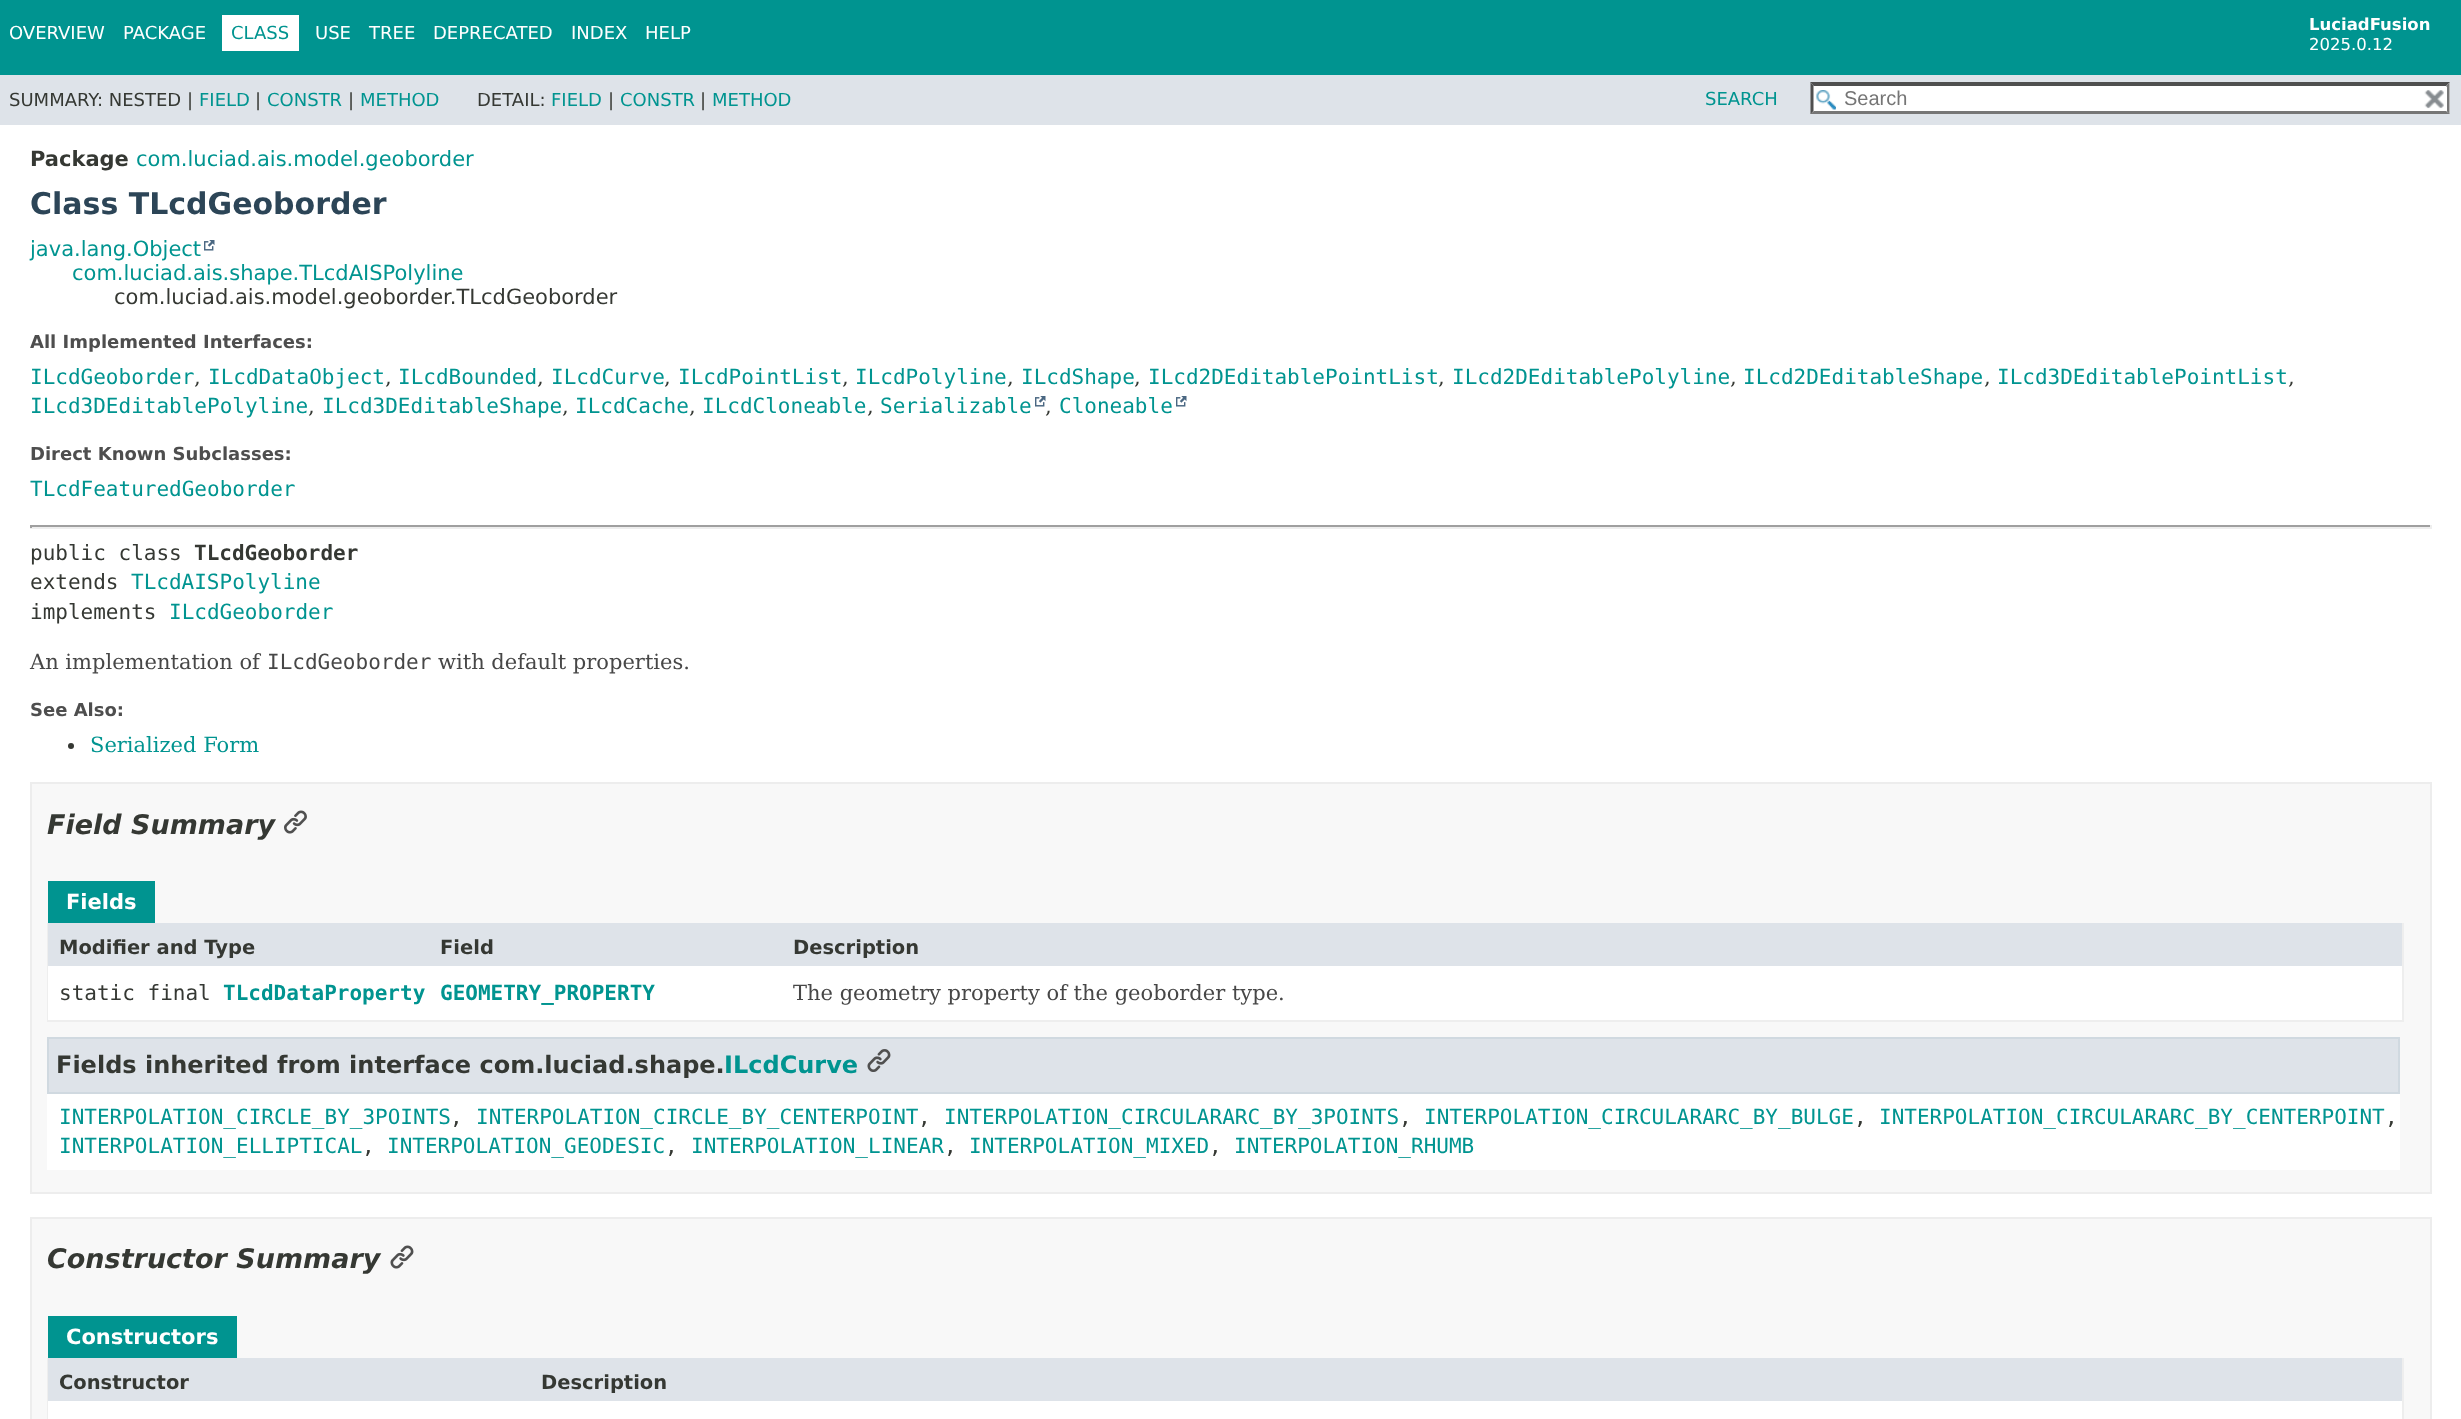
(async () => {
    const canvas = document.querySelector("canvas");
    canvas.width = 2461;
    canvas.height = 1419;
    const context = canvas.getContext("2d");
    context.miterLimit = 4;
    context.fontKerning = "normal";
    function write(s, x, y, font, color) {
        context.font = font;
        context.fillStyle = color;
        context.fillText(s, x, y);
    }
    function block(x, y, w, h, color) {
        context.fillStyle = color;
        context.fillRect(x, y, w, h);
    }
    async function photo(src, x, y, w, h) {
        const img = new Image();
        img.src = src;
        await img.decode();
        context.drawImage(img, x, y, w, h);
    }

    block(0, 0, 2461, 1419, "rgb(255, 255, 255)");
    block(0, 0, 2461, 75, "rgb(0, 148, 144)");
    write("OVERVIEW", 9, 39, "18px DejaVu Sans", "rgb(255, 255, 255)");
    write("PACKAGE", 123, 39, "18px DejaVu Sans", "rgb(255, 255, 255)");
    block(222, 15, 77, 36, "rgb(255, 255, 255)");
    write("CLASS", 231, 39, "18px DejaVu Sans", "rgb(0, 148, 144)");
    write("USE", 315, 39, "18px DejaVu Sans", "rgb(255, 255, 255)");
    write("TREE", 369, 39, "18px DejaVu Sans", "rgb(255, 255, 255)");
    write("DEPRECATED", 433, 39, "18px DejaVu Sans", "rgb(255, 255, 255)");
    write("INDEX", 571, 39, "18px DejaVu Sans", "rgb(255, 255, 255)");
    write("HELP", 645, 39, "18px DejaVu Sans", "rgb(255, 255, 255)");
    write("LuciadFusion", 2309, 30, "bold 16.5px DejaVu Sans", "rgb(255, 255, 255)");
    write("2025.0.12", 2309, 50, "16.5px DejaVu Sans", "rgb(255, 255, 255)");
    block(0, 75, 2461, 50, "rgb(222, 227, 233)");
    write("SUMMARY: NESTED |", 9, 106, "18px DejaVu Sans", "rgb(53, 56, 51)");
    write("FIELD", 199, 106, "18px DejaVu Sans", "rgb(0, 148, 144)");
    write("|", 255, 106, "18px DejaVu Sans", "rgb(53, 56, 51)");
    write("CONSTR", 267, 106, "18px DejaVu Sans", "rgb(0, 148, 144)");
    write("|", 348, 106, "18px DejaVu Sans", "rgb(53, 56, 51)");
    write("METHOD", 360, 106, "18px DejaVu Sans", "rgb(0, 148, 144)");
    write("DETAIL:", 477, 106, "18px DejaVu Sans", "rgb(53, 56, 51)");
    write("FIELD", 551, 106, "18px DejaVu Sans", "rgb(0, 148, 144)");
    write("|", 608, 106, "18px DejaVu Sans", "rgb(53, 56, 51)");
    write("CONSTR", 620, 106, "18px DejaVu Sans", "rgb(0, 148, 144)");
    write("|", 700, 106, "18px DejaVu Sans", "rgb(53, 56, 51)");
    write("METHOD", 712, 106, "18px DejaVu Sans", "rgb(0, 148, 144)");
    write("SEARCH", 1705, 105, "18px DejaVu Sans", "rgb(0, 148, 144)");
    block(1811, 83, 639, 31, "rgb(255, 255, 255)");
    await photo("media/1.png", 1816, 90, 20, 20);
    context.fillStyle = "rgb(79, 79, 79)";
    context.beginPath();
    context.moveTo(1810, 82);
    context.lineTo(2450, 82);
    context.lineTo(2446, 86);
    context.lineTo(1814, 86);
    context.closePath();
    context.fill();
    context.fillStyle = "rgb(118, 118, 118)";
    context.beginPath();
    context.moveTo(2449.5, 82.5);
    context.lineTo(2449.5, 114);
    context.lineTo(2446.5, 111);
    context.lineTo(2446.5, 85.5);
    context.closePath();
    context.fill();
    context.beginPath();
    context.moveTo(2450, 114);
    context.lineTo(1810, 114);
    context.lineTo(1814, 111);
    context.lineTo(2446, 111);
    context.closePath();
    context.fill();
    context.fillStyle = "rgb(79, 79, 79)";
    context.beginPath();
    context.moveTo(1810.5, 114);
    context.lineTo(1810.5, 82.5);
    context.lineTo(1813.5, 85.5);
    context.lineTo(1813.5, 111);
    context.closePath();
    context.fill();
    write("Search", 1844, 105, "20px Liberation Sans", "rgb(117, 117, 117)");
    block(2446, 87, 1, 24, "rgb(255, 255, 255)");
    await photo("media/2.png", 2424, 90, 20, 19);
    write("Package", 30, 166, "bold 21px DejaVu Sans", "rgb(53, 56, 51)");
    write("com.luciad.ais.model.geoborder", 136, 166, "21px DejaVu Sans", "rgb(0, 148, 144)");
    write("Class TLcdGeoborder", 30, 214, "bold 30px DejaVu Sans", "rgb(44, 69, 87)");
    write("java.lang.Object", 30, 256, "21px DejaVu Sans", "rgb(0, 148, 144)");
    await photo("media/3.png", 204, 240, 11, 11);
    write("com.luciad.ais.shape.TLcdAISPolyline", 72, 280, "21px DejaVu Sans", "rgb(0, 148, 144)");
    write("com.luciad.ais.model.geoborder.TLcdGeoborder", 114, 304, "21px DejaVu Sans", "rgb(53, 56, 51)");
    write("All Implemented Interfaces:", 30, 348, "bold 18px DejaVu Sans", "rgb(78, 78, 78)");
    write("ILcdGeoborder", 30, 384, "21px DejaVu Sans Mono", "rgb(0, 148, 144)");
    write(",", 194, 384, "21px DejaVu Serif", "rgb(53, 56, 51)");
    write("ILcdDataObject", 208, 384, "21px DejaVu Sans Mono", "rgb(0, 148, 144)");
    write(",", 385, 384, "21px DejaVu Serif", "rgb(53, 56, 51)");
    write("ILcdBounded", 398, 384, "21px DejaVu Sans Mono", "rgb(0, 148, 144)");
    write(",", 537, 384, "21px DejaVu Serif", "rgb(53, 56, 51)");
    write("ILcdCurve", 551, 384, "21px DejaVu Sans Mono", "rgb(0, 148, 144)");
    write(",", 664, 384, "21px DejaVu Serif", "rgb(53, 56, 51)");
    write("ILcdPointList", 678, 384, "21px DejaVu Sans Mono", "rgb(0, 148, 144)");
    write(",", 842, 384, "21px DejaVu Serif", "rgb(53, 56, 51)");
    write("ILcdPolyline", 855, 384, "21px DejaVu Sans Mono", "rgb(0, 148, 144)");
    write(",", 1007, 384, "21px DejaVu Serif", "rgb(53, 56, 51)");
    write("ILcdShape", 1021, 384, "21px DejaVu Sans Mono", "rgb(0, 148, 144)");
    write(",", 1134, 384, "21px DejaVu Serif", "rgb(53, 56, 51)");
    write("ILcd2DEditablePointList", 1148, 384, "21px DejaVu Sans Mono", "rgb(0, 148, 144)");
    write(",", 1438, 384, "21px DejaVu Serif", "rgb(53, 56, 51)");
    write("ILcd2DEditablePolyline", 1452, 384, "21px DejaVu Sans Mono", "rgb(0, 148, 144)");
    write(",", 1730, 384, "21px DejaVu Serif", "rgb(53, 56, 51)");
    write("ILcd2DEditableShape", 1743, 384, "21px DejaVu Sans Mono", "rgb(0, 148, 144)");
    write(",", 1984, 384, "21px DejaVu Serif", "rgb(53, 56, 51)");
    write("ILcd3DEditablePointList", 1997, 384, "21px DejaVu Sans Mono", "rgb(0, 148, 144)");
    write(",", 2288, 384, "21px DejaVu Serif", "rgb(53, 56, 51)");
    write("ILcd3DEditablePolyline", 30, 413, "21px DejaVu Sans Mono", "rgb(0, 148, 144)");
    write(",", 308, 413, "21px DejaVu Serif", "rgb(53, 56, 51)");
    write("ILcd3DEditableShape", 322, 413, "21px DejaVu Sans Mono", "rgb(0, 148, 144)");
    write(",", 562, 413, "21px DejaVu Serif", "rgb(53, 56, 51)");
    write("ILcdCache", 575, 413, "21px DejaVu Sans Mono", "rgb(0, 148, 144)");
    write(",", 689, 413, "21px DejaVu Serif", "rgb(53, 56, 51)");
    write("ILcdCloneable", 702, 413, "21px DejaVu Sans Mono", "rgb(0, 148, 144)");
    write(",", 867, 413, "21px DejaVu Serif", "rgb(53, 56, 51)");
    write("Serializable", 880, 413, "21px DejaVu Sans Mono", "rgb(0, 148, 144)");
    await photo("media/3.png", 1035, 396, 11, 11);
    write(",", 1045, 413, "21px DejaVu Serif", "rgb(53, 56, 51)");
    write("Cloneable", 1059, 413, "21px DejaVu Sans Mono", "rgb(0, 148, 144)");
    await photo("media/3.png", 1176, 396, 11, 11);
    write("Direct Known Subclasses:", 30, 460, "bold 18px DejaVu Sans", "rgb(78, 78, 78)");
    write("TLcdFeaturedGeoborder", 30, 496, "21px DejaVu Sans Mono", "rgb(0, 148, 144)");
    block(30, 525, 2402, 2, "rgb(159, 159, 159)");
    block(2430, 525, 2, 3, "rgb(238, 238, 238)");
    block(30, 527, 2402, 2, "rgb(238, 238, 238)");
    block(30, 525, 2, 3, "rgb(159, 159, 159)");
    write("public class", 30, 560, "21px DejaVu Sans Mono", "rgb(53, 56, 51)");
    write("TLcdGeoborder", 194, 560, "bold 21px DejaVu Sans Mono", "rgb(53, 56, 51)");
    write("extends", 30, 589, "21px DejaVu Sans Mono", "rgb(53, 56, 51)");
    write("TLcdAISPolyline", 131, 589, "21px DejaVu Sans Mono", "rgb(0, 148, 144)");
    write("implements", 30, 619, "21px DejaVu Sans Mono", "rgb(53, 56, 51)");
    write("ILcdGeoborder", 169, 619, "21px DejaVu Sans Mono", "rgb(0, 148, 144)");
    write("An implementation of", 30, 669, "21px DejaVu Serif", "rgb(71, 71, 71)");
    write("ILcdGeoborder", 267, 669, "21px DejaVu Sans Mono", "rgb(71, 71, 71)");
    write("with default properties.", 438, 669, "21px DejaVu Serif", "rgb(71, 71, 71)");
    write("See Also:", 30, 716, "bold 18px DejaVu Sans", "rgb(78, 78, 78)");
    context.fillStyle = "rgb(53, 56, 51)";
    context.beginPath();
    context.arc(71, 746, 3, 0, Math.PI * 2);
    context.fill();
    write("Serialized Form", 90, 752, "21px DejaVu Serif", "rgb(0, 148, 144)");
    context.fillStyle = "rgb(248, 248, 248)";
    context.beginPath();
    context.rect(31, 783, 2400, 410);
    context.fill();
    context.strokeStyle = "rgb(237, 237, 237)";
    context.lineWidth = 2;
    context.stroke();
    write("Field Summary", 47, 834, "italic bold 27px DejaVu Sans", "rgb(53, 56, 51)");
    await photo("media/4.png", 284, 810, 23, 24);
    block(48, 881, 107, 42, "rgb(0, 148, 144)");
    write("Fields", 66, 909, "bold 21px DejaVu Sans", "rgb(255, 255, 255)");
    block(2402, 923, 2, 99, "rgb(238, 238, 238)");
    block(47, 1020, 2356, 2, "rgb(238, 238, 238)");
    block(47, 923, 2, 99, "rgb(238, 238, 238)");
    block(48, 923, 735, 43, "rgb(222, 227, 233)");
    write("Modifier and Type", 59, 954, "bold 19.5px DejaVu Sans", "rgb(53, 56, 51)");
    write("Field", 440, 954, "bold 19.5px DejaVu Sans", "rgb(53, 56, 51)");
    block(783, 923, 1619, 43, "rgb(222, 227, 233)");
    write("Description", 793, 954, "bold 19.5px DejaVu Sans", "rgb(53, 56, 51)");
    block(48, 966, 735, 54, "rgb(255, 255, 255)");
    write("static final", 59, 1000, "21px DejaVu Sans Mono", "rgb(53, 56, 51)");
    write("TLcdDataProperty", 223, 1000, "bold 21px DejaVu Sans Mono", "rgb(0, 148, 144)");
    write("GEOMETRY_PROPERTY", 440, 1000, "bold 21px DejaVu Sans Mono", "rgb(0, 148, 144)");
    block(783, 966, 1619, 54, "rgb(255, 255, 255)");
    write("The geometry property of the geoborder type.", 793, 1000, "21px DejaVu Serif", "rgb(71, 71, 71)");
    block(47, 1094, 2353, 76, "rgb(255, 255, 255)");
    context.fillStyle = "rgb(222, 227, 233)";
    context.beginPath();
    context.rect(48, 1038, 2351, 55);
    context.fill();
    context.strokeStyle = "rgb(208, 217, 224)";
    context.stroke();
    write("Fields inherited from interface com.luciad.shape.", 56, 1073, "bold 24px DejaVu Sans", "rgb(53, 56, 51)");
    write("ILcdCurve", 724, 1073, "bold 24px DejaVu Sans", "rgb(0, 148, 144)");
    await photo("media/5.png", 867, 1049, 24, 23);
    write("INTERPOLATION_CIRCLE_BY_3POINTS", 59, 1124, "21px DejaVu Sans Mono", "rgb(0, 148, 144)");
    write(",", 450, 1124, "21px DejaVu Sans Mono", "rgb(53, 56, 51)");
    write("INTERPOLATION_CIRCLE_BY_CENTERPOINT", 476, 1124, "21px DejaVu Sans Mono", "rgb(0, 148, 144)");
    write(",", 918, 1124, "21px DejaVu Sans Mono", "rgb(53, 56, 51)");
    write("INTERPOLATION_CIRCULARARC_BY_3POINTS", 944, 1124, "21px DejaVu Sans Mono", "rgb(0, 148, 144)");
    write(",", 1399, 1124, "21px DejaVu Sans Mono", "rgb(53, 56, 51)");
    write("INTERPOLATION_CIRCULARARC_BY_BULGE", 1424, 1124, "21px DejaVu Sans Mono", "rgb(0, 148, 144)");
    write(",", 1854, 1124, "21px DejaVu Sans Mono", "rgb(53, 56, 51)");
    write("INTERPOLATION_CIRCULARARC_BY_CENTERPOINT", 1879, 1124, "21px DejaVu Sans Mono", "rgb(0, 148, 144)");
    write(",", 2385, 1124, "21px DejaVu Sans Mono", "rgb(53, 56, 51)");
    write("INTERPOLATION_ELLIPTICAL", 59, 1153, "21px DejaVu Sans Mono", "rgb(0, 148, 144)");
    write(",", 362, 1153, "21px DejaVu Sans Mono", "rgb(53, 56, 51)");
    write("INTERPOLATION_GEODESIC", 387, 1153, "21px DejaVu Sans Mono", "rgb(0, 148, 144)");
    write(",", 665, 1153, "21px DejaVu Sans Mono", "rgb(53, 56, 51)");
    write("INTERPOLATION_LINEAR", 691, 1153, "21px DejaVu Sans Mono", "rgb(0, 148, 144)");
    write(",", 944, 1153, "21px DejaVu Sans Mono", "rgb(53, 56, 51)");
    write("INTERPOLATION_MIXED", 969, 1153, "21px DejaVu Sans Mono", "rgb(0, 148, 144)");
    write(",", 1209, 1153, "21px DejaVu Sans Mono", "rgb(53, 56, 51)");
    write("INTERPOLATION_RHUMB", 1234, 1153, "21px DejaVu Sans Mono", "rgb(0, 148, 144)");
    context.fillStyle = "rgb(248, 248, 248)";
    context.beginPath();
    context.rect(31, 1218, 2400, 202);
    context.fill();
    context.strokeStyle = "rgb(237, 237, 237)";
    context.stroke();
    write("Constructor Summary", 47, 1268, "italic bold 27px DejaVu Sans", "rgb(53, 56, 51)");
    await photo("media/6.png", 390, 1245, 24, 24);
    block(48, 1316, 189, 42, "rgb(0, 148, 144)");
    write("Constructors", 66, 1344, "bold 21px DejaVu Sans", "rgb(255, 255, 255)");
    block(2402, 1358, 2, 61, "rgb(238, 238, 238)");
    block(47, 1358, 1, 61, "rgb(238, 238, 238)");
    block(48, 1358, 2354, 43, "rgb(222, 227, 233)");
    write("Constructor", 59, 1389, "bold 19.5px DejaVu Sans", "rgb(53, 56, 51)");
    write("Description", 541, 1389, "bold 19.5px DejaVu Sans", "rgb(53, 56, 51)");
    block(48, 1401, 2354, 18, "rgb(255, 255, 255)");
})();
